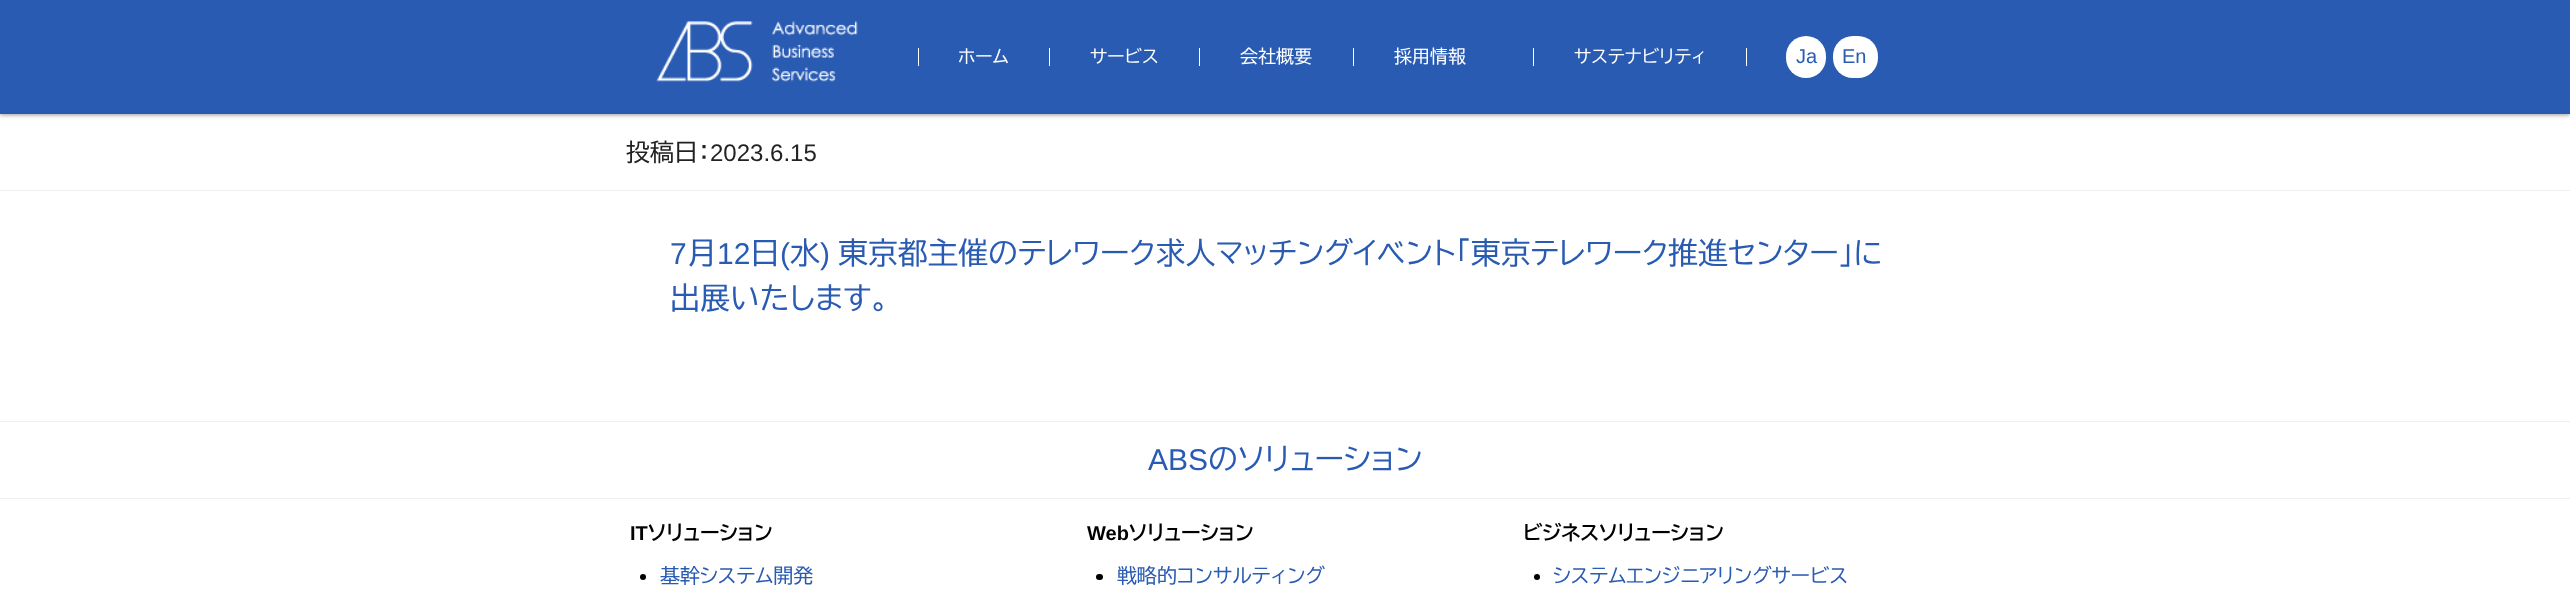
(async () => {
    const canvas = document.querySelector("canvas");
    canvas.width = 2570;
    canvas.height = 601;
    const context = canvas.getContext("2d");
    context.miterLimit = 4;
    context.fontKerning = "normal";
    function write(s, x, y, font, color) {
        context.font = font;
        context.fillStyle = color;
        context.fillText(s, x, y);
    }
    function block(x, y, w, h, color) {
        context.fillStyle = color;
        context.fillRect(x, y, w, h);
    }
    function card(x, y, w, h, r, color) {
        context.fillStyle = color;
        context.beginPath();
        context.roundRect(x, y, w, h, r);
        context.fill();
    }
    async function photo(src, x, y, w, h) {
        const img = new Image();
        img.src = src;
        await img.decode();
        context.drawImage(img, x, y, w, h);
    }

    block(0, 0, 2570, 601, "rgb(255, 255, 255)");
    context.fillStyle = "rgba(0, 0, 0, 0.4)";
    context.filter = "blur(2px)";
    context.beginPath();
    context.rect(0, 1, 2570, 114);
    context.fill();
    context.filter = "none";
    block(0, 0, 2570, 114, "rgb(41, 91, 178)");
    await photo("media/1.png", 656, 21, 202, 61);
    block(1746, 48, 1, 18, "rgb(255, 255, 255)");
    block(918, 48, 1, 18, "rgb(255, 255, 255)");
    write("ホーム", 958, 63, "18px BIZ UDPGothic", "rgb(255, 255, 255)");
    block(1049, 48, 1, 18, "rgb(255, 255, 255)");
    write("サービス", 1090, 63, "18px BIZ UDPGothic", "rgb(255, 255, 255)");
    block(1199, 48, 1, 18, "rgb(255, 255, 255)");
    write("会社概要", 1240, 63, "18px BIZ UDPGothic", "rgb(255, 255, 255)");
    block(1353, 48, 1, 18, "rgb(255, 255, 255)");
    write("採用情報", 1394, 63, "18px BIZ UDPGothic", "rgb(255, 255, 255)");
    block(1533, 48, 1, 18, "rgb(255, 255, 255)");
    write("サステナビリティ", 1574, 63, "18px BIZ UDPGothic", "rgb(255, 255, 255)");
    card(1786, 36, 40, 42, 20, "rgb(255, 255, 255)");
    write("Ja", 1796, 63, "20px Liberation Sans", "rgb(41, 91, 178)");
    card(1833, 36, 45, 42, 20, "rgb(255, 255, 255)");
    write("En", 1842, 63, "20px Liberation Sans", "rgb(41, 91, 178)");
    block(0, 190, 2570, 1, "rgb(238, 238, 238)");
    write("投稿日：", 626, 161, "24px BIZ UDPGothic", "rgb(34, 34, 34)");
    write("2023.6.15", 710, 161, "24px Liberation Sans", "rgb(34, 34, 34)");
    write("月", 687, 264, "30px BIZ UDPGothic", "rgb(41, 91, 178)");
    write("日 水", 750, 264, "30px BIZ UDPGothic", "rgb(41, 91, 178)");
    write("東京都主催のテレワーク求人マッチングイベント「東京テレワーク推進センター」に", 838, 264, "30px BIZ UDPGothic", "rgb(41, 91, 178)");
    write("7", 670, 264, "30px Liberation Sans", "rgb(41, 91, 178)");
    write("12", 717, 264, "30px Liberation Sans", "rgb(41, 91, 178)");
    write("(", 780, 264, "30px Liberation Sans", "rgb(41, 91, 178)");
    write(")", 820, 264, "30px Liberation Sans", "rgb(41, 91, 178)");
    write("出展いたします。", 670, 309, "30px BIZ UDPGothic", "rgb(41, 91, 178)");
    block(0, 421, 2570, 1, "rgb(238, 238, 238)");
    block(0, 498, 2570, 1, "rgb(238, 238, 238)");
    write("ABS", 1148, 470, "30px Liberation Sans", "rgb(41, 91, 178)");
    write("のソリューション", 1208, 470, "30px BIZ UDPGothic", "rgb(41, 91, 178)");
    write("IT", 630, 540, "bold 20px Liberation Sans", "rgb(0, 0, 0)");
    write("ソリューション", 648, 540, "bold 20px BIZ UDPGothic", "rgb(0, 0, 0)");
    context.beginPath();
    context.arc(643, 577, 3, 0, Math.PI * 2);
    context.fill();
    write("基幹システム開発", 660, 583, "20px BIZ UDPGothic", "rgb(41, 91, 178)");
    write("Web", 1087, 540, "bold 20px Liberation Sans", "rgb(0, 0, 0)");
    write("ソリューション", 1129, 540, "bold 20px BIZ UDPGothic", "rgb(0, 0, 0)");
    card(1096, 574, 7, 6, 3, "rgb(0, 0, 0)");
    write("戦略的コンサルティング", 1117, 583, "20px BIZ UDPGothic", "rgb(41, 91, 178)");
    write("ビジネスソリューション", 1523, 540, "bold 20px BIZ UDPGothic", "rgb(0, 0, 0)");
    context.beginPath();
    context.arc(1537, 577, 3, 0, Math.PI * 2);
    context.fill();
    write("システムエンジニアリングサービス", 1553, 583, "20px BIZ UDPGothic", "rgb(41, 91, 178)");
})();
